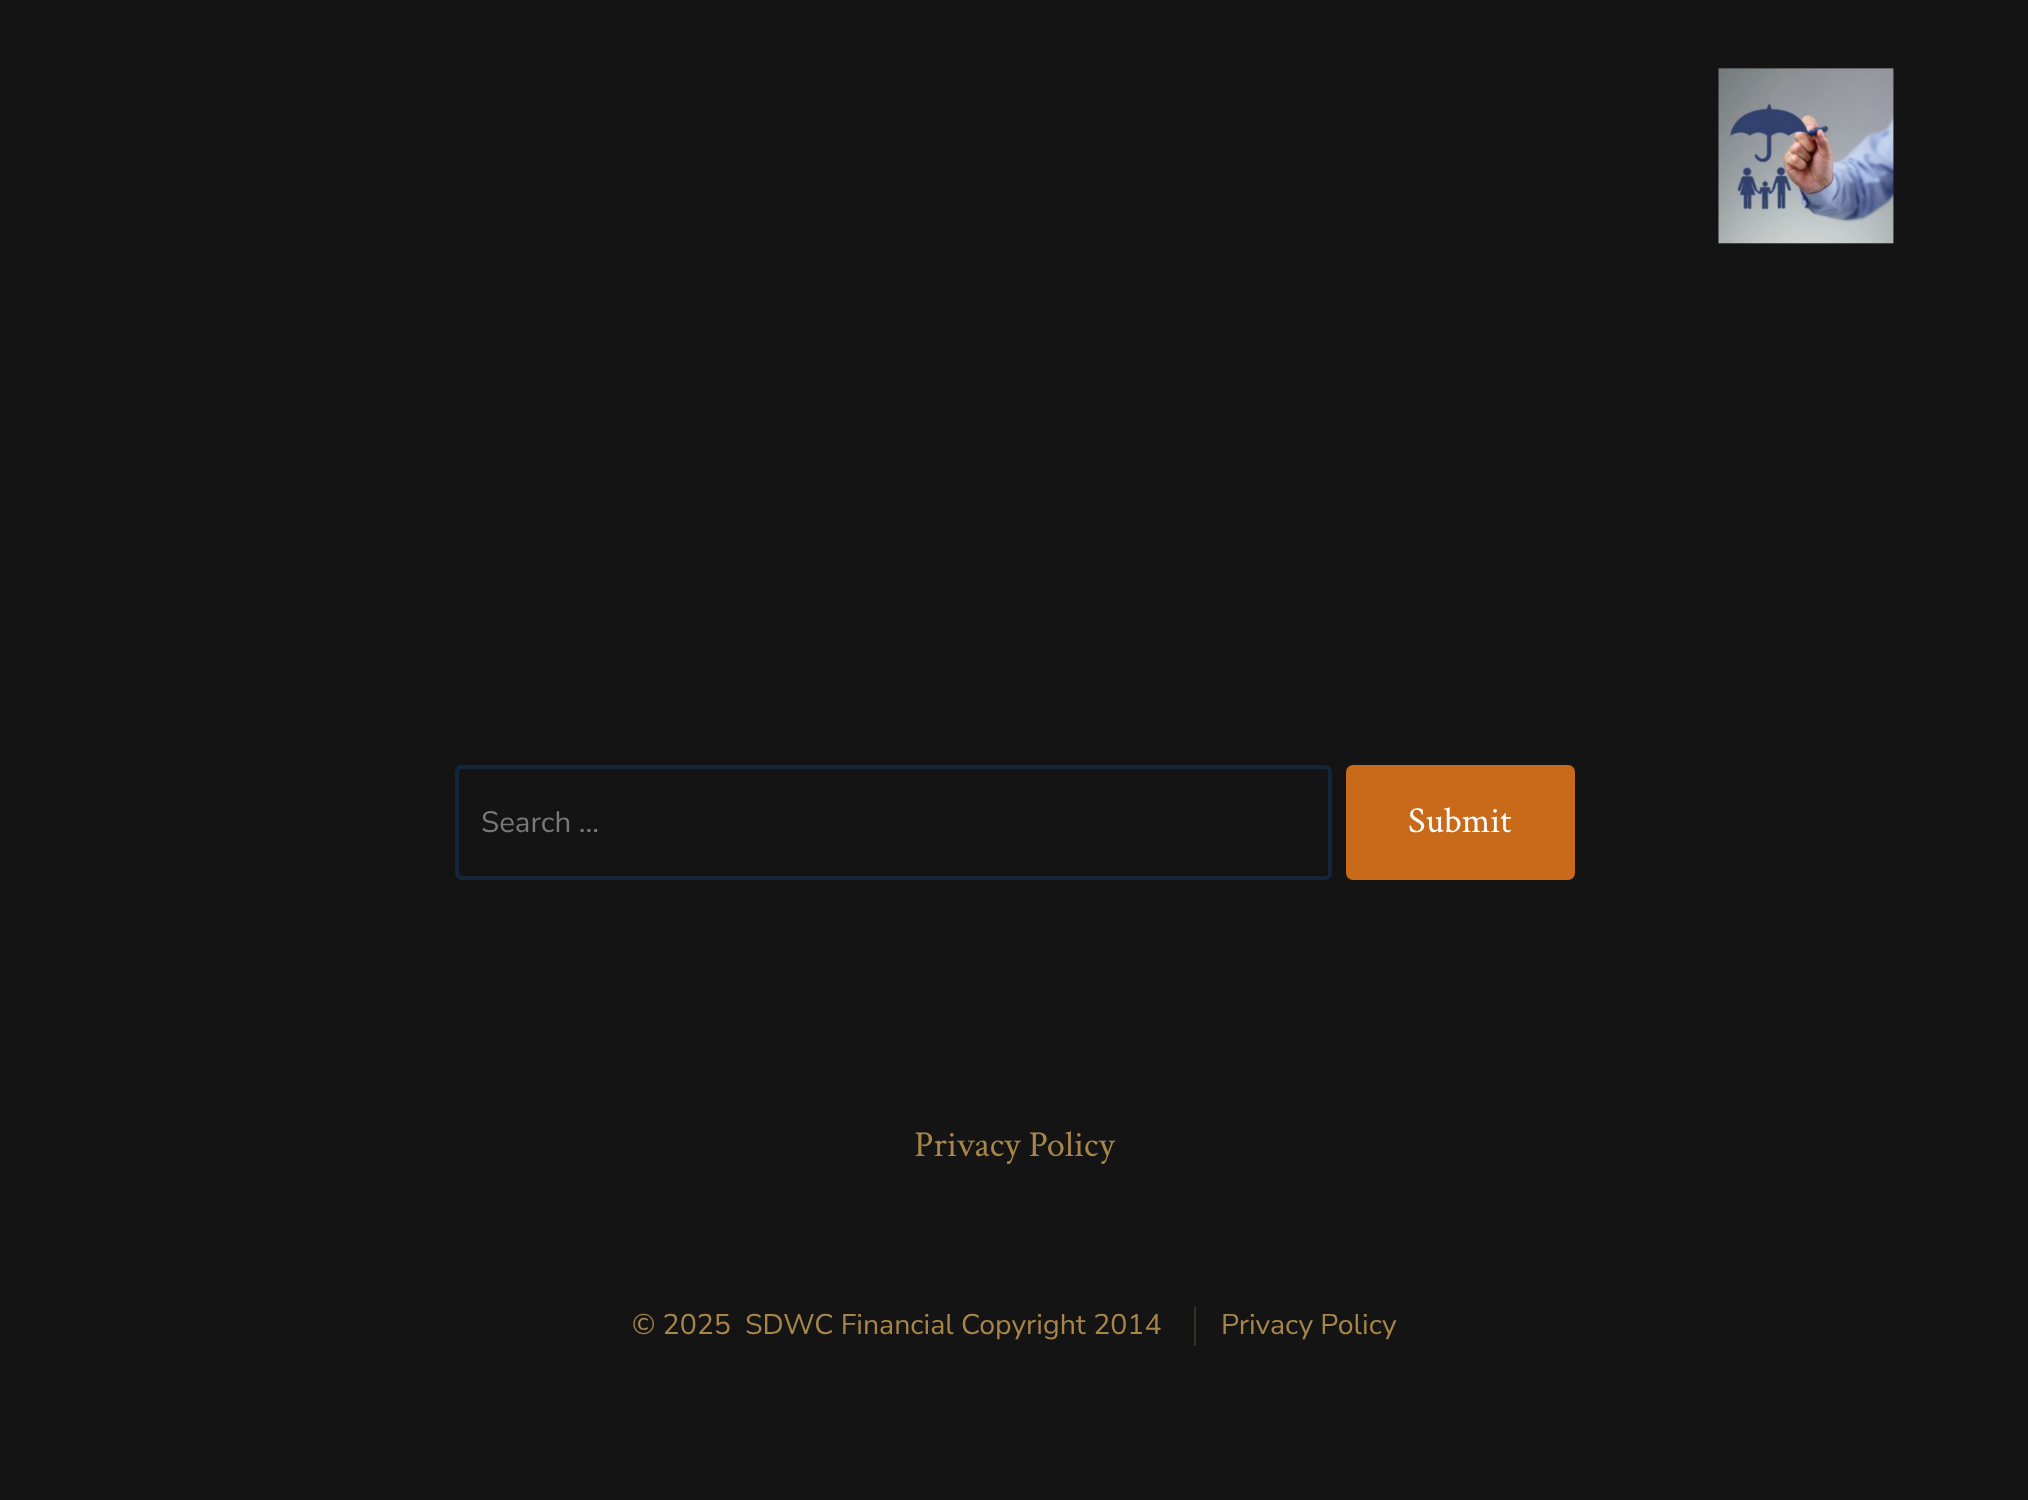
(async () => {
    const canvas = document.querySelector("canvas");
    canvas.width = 2028;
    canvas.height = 1500;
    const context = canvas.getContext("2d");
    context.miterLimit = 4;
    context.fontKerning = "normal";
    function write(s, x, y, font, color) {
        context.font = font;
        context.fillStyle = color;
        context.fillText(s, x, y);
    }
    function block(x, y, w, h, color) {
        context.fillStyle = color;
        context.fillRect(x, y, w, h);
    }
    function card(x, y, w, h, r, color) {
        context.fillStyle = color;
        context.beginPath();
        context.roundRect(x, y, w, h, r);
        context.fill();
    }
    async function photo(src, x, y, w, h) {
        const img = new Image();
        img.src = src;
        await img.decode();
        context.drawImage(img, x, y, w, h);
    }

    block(0, 0, 2028, 1500, "rgb(20, 20, 20)");
    await photo("media/1.png", 1718, 68, 176, 176);
    context.beginPath();
    context.roundRect(457, 767, 873, 111, 5);
    context.strokeStyle = "rgb(19, 38, 58)";
    context.lineWidth = 4;
    context.stroke();
    write("Search …", 481, 832, "29.5px Nunito Sans", "rgb(120, 120, 120)");
    card(1346, 765, 229, 115, 7, "rgb(200, 106, 25)");
    write("Submit", 1408, 832, "36.5px Crimson Text", "rgb(255, 255, 255)");
    write("Privacy Policy", 914, 1156, "36.5px Crimson Text", "rgb(168, 133, 72)");
    write("© 2025", 632, 1334, "28.5px Nunito Sans", "rgb(168, 133, 72)");
    write("SDWC Financial Copyright 2014", 745, 1334, "28.5px Nunito Sans", "rgb(168, 133, 72)");
    block(1194, 1307, 2, 39, "rgb(57, 48, 33)");
    write("Privacy Policy", 1221, 1334, "28.5px Nunito Sans", "rgb(168, 133, 72)");
})();
